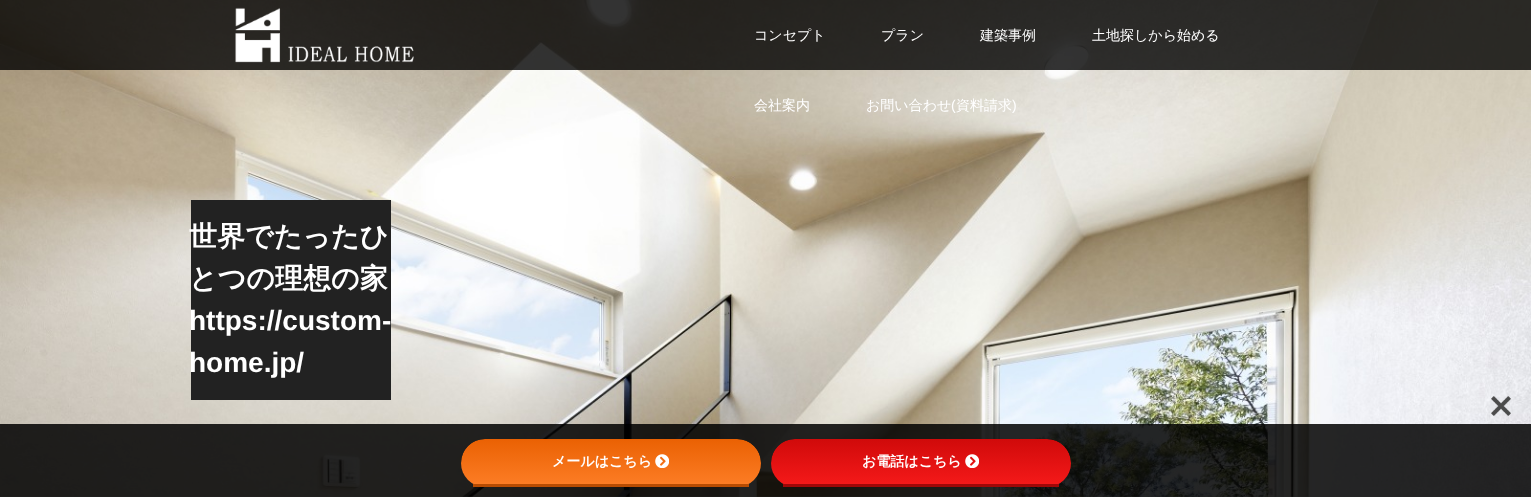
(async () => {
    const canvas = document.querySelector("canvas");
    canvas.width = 1531;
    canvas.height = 497;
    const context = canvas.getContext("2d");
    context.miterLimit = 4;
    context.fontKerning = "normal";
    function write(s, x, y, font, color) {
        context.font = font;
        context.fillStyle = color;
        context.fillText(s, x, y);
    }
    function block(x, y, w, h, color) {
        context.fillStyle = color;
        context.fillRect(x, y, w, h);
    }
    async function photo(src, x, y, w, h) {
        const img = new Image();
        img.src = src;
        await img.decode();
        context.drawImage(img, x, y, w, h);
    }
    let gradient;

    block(0, 0, 1531, 497, "rgb(255, 255, 255)");
    await photo("media/2.png", 0, 0, 1531, 497);
    block(0, 0, 1531, 70, "rgba(0, 0, 0, 0.8)");
    await photo("media/1.png", 235, 7, 179, 56);
    write("コンセプト", 754, 40, "500 14px WenQuanYi Zen Hei", "rgb(255, 255, 255)");
    write("プラン", 881, 40, "500 14px WenQuanYi Zen Hei", "rgb(255, 255, 255)");
    write("建築事例", 980, 40, "500 14px WenQuanYi Zen Hei", "rgb(255, 255, 255)");
    write("土地探しから始める", 1092, 40, "500 14px WenQuanYi Zen Hei", "rgb(255, 255, 255)");
    write("会社案内", 754, 110, "500 14px WenQuanYi Zen Hei", "rgb(255, 255, 255)");
    write("お問い合わせ", 866, 110, "500 14px WenQuanYi Zen Hei", "rgb(255, 255, 255)");
    write("(", 951, 110, "14px Liberation Sans", "rgb(255, 255, 255)");
    write("資料請求", 956, 110, "500 14px WenQuanYi Zen Hei", "rgb(255, 255, 255)");
    write(")", 1012, 110, "14px Liberation Sans", "rgb(255, 255, 255)");
    block(191, 200, 200, 200, "rgb(34, 34, 34)");
    write("世界でたったひ", 189, 246, "bold 28px WenQuanYi Zen Hei", "rgb(255, 255, 255)");
    write("とつの理想の家", 189, 288, "bold 28px WenQuanYi Zen Hei", "rgb(255, 255, 255)");
    write("https://custom-", 189, 330, "bold 28px Liberation Sans", "rgb(255, 255, 255)");
    write("home.jp/", 189, 372, "bold 28px Liberation Sans", "rgb(255, 255, 255)");
    block(0, 424, 1531, 73, "rgba(0, 0, 0, 0.85)");
    await photo("media/3.png", 1491, 396, 20, 20);
    context.save();
    context.beginPath();
    context.roundRect(461, 439, 300, 48, 24);
    context.clip();
    gradient = context.createLinearGradient(611, 439, 611, 484);
    gradient.addColorStop(0, "rgb(234, 97, 3)");
    gradient.addColorStop(1, "rgb(252, 124, 36)");
    context.fillStyle = gradient;
    context.beginPath();
    context.roundRect(461, 439, 300, 45, [24, 24, 0, 0]);
    context.fill();
    context.restore();
    block(473, 484, 276, 3, "rgb(184, 76, 2)");
    write("メールはこちら", 552, 466, "bold 14px WenQuanYi Zen Hei", "rgb(255, 255, 255)");
    await photo("media/4.png", 655, 454, 14, 14);
    context.save();
    context.beginPath();
    context.roundRect(771, 439, 300, 48, 24);
    context.clip();
    gradient = context.createLinearGradient(921, 439, 921, 484);
    gradient.addColorStop(0, "rgb(208, 10, 10)");
    gradient.addColorStop(1, "rgb(244, 25, 25)");
    context.fillStyle = gradient;
    context.beginPath();
    context.roundRect(771, 439, 300, 45, [24, 24, 0, 0]);
    context.fill();
    context.restore();
    block(783, 484, 276, 3, "rgb(159, 8, 8)");
    write("お電話はこちら", 862, 466, "bold 14px WenQuanYi Zen Hei", "rgb(255, 255, 255)");
    await photo("media/5.png", 965, 454, 14, 14);
})();
